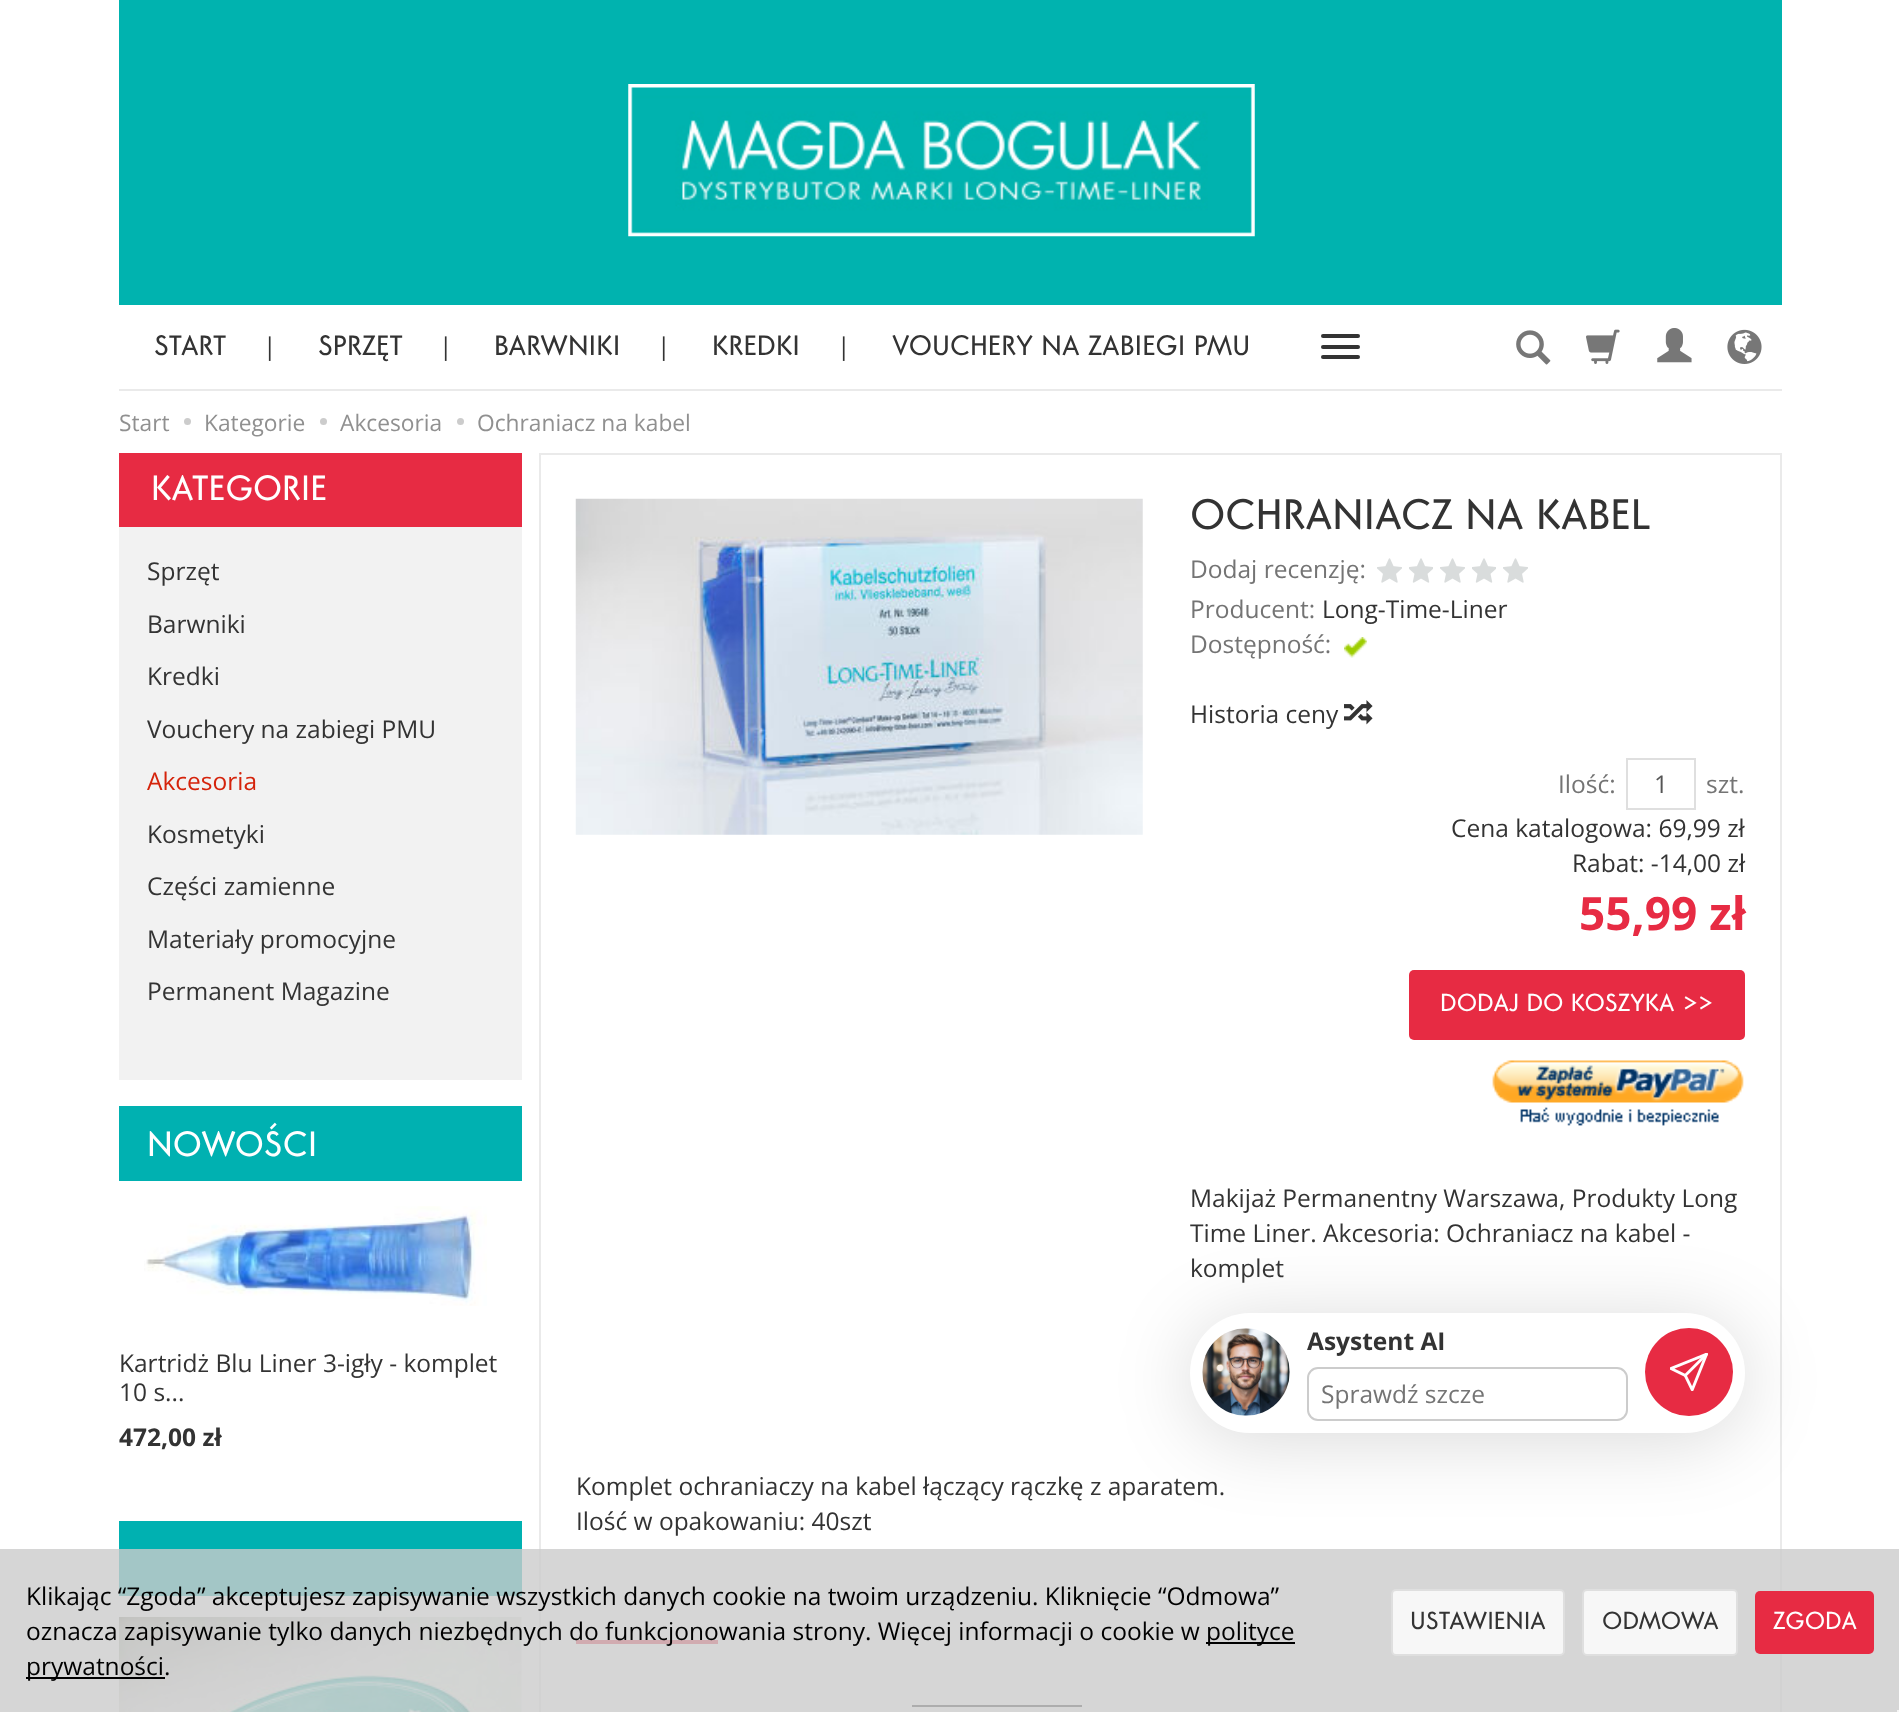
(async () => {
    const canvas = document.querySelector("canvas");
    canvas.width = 1899;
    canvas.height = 1712;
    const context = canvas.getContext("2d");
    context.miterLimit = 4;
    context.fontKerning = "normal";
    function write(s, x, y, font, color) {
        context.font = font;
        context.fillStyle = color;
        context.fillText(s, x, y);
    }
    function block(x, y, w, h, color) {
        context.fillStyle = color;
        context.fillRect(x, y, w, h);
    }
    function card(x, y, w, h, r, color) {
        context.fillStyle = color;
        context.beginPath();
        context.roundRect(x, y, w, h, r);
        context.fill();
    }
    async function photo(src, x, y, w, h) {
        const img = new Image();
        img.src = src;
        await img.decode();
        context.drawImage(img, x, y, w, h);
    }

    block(0, 0, 1899, 1712, "rgb(255, 255, 255)");
    block(119, 0, 1663, 305, "rgb(0, 179, 175)");
    await photo("media/1.png", 628, 84, 627, 153);
    block(119, 389, 1663, 2, "rgb(234, 234, 234)");
    write("START", 154, 355, "28px 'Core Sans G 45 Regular'", "rgb(51, 51, 51)");
    write("|", 263, 355, "24.5px Open Sans", "rgb(51, 51, 51)");
    write("SPRZĘT", 318, 355, "28px 'Core Sans G 45 Regular'", "rgb(51, 51, 51)");
    write("|", 439, 355, "24.5px Open Sans", "rgb(51, 51, 51)");
    write("BARWNIKI", 494, 355, "28px 'Core Sans G 45 Regular'", "rgb(51, 51, 51)");
    write("|", 657, 355, "24.5px Open Sans", "rgb(51, 51, 51)");
    write("KREDKI", 712, 355, "28px 'Core Sans G 45 Regular'", "rgb(51, 51, 51)");
    write("|", 837, 355, "24.5px Open Sans", "rgb(51, 51, 51)");
    write("VOUCHERY NA ZABIEGI PMU", 892, 355, "28px 'Core Sans G 45 Regular'", "rgb(51, 51, 51)");
    card(1321, 334, 39, 4, 2, "rgb(51, 51, 51)");
    card(1321, 345, 39, 4, 2, "rgb(51, 51, 51)");
    card(1321, 355, 39, 4, 2, "rgb(51, 51, 51)");
    await photo("media/2.png", 1516, 330, 35, 35);
    await photo("media/3.png", 1586, 329, 34, 35);
    await photo("media/4.png", 1657, 328, 35, 35);
    await photo("media/5.png", 1727, 329, 35, 35);
    write("Start", 119, 431, "22.75px Open Sans", "rgb(144, 144, 144)");
    context.fillStyle = "rgb(204, 204, 204)";
    context.beginPath();
    context.arc(187.5, 421.5, 3.5, 0, Math.PI * 2);
    context.fill();
    write("Kategorie", 204, 431, "22.75px Open Sans", "rgb(144, 144, 144)");
    context.fillStyle = "rgb(204, 204, 204)";
    context.beginPath();
    context.arc(323.5, 421.5, 3.5, 0, Math.PI * 2);
    context.fill();
    write("Akcesoria", 340, 431, "22.75px Open Sans", "rgb(144, 144, 144)");
    context.fillStyle = "rgb(204, 204, 204)";
    context.beginPath();
    context.arc(460.5, 421.5, 3.5, 0, Math.PI * 2);
    context.fill();
    write("Ochraniacz na kabel", 477, 431, "22.75px Open Sans", "rgb(144, 144, 144)");
    block(119, 527, 403, 553, "rgb(242, 242, 242)");
    block(119, 453, 403, 74, "rgb(231, 43, 67)");
    write("KATEGORIE", 151, 500, "35px 'Core Sans G 45 Regular'", "rgb(255, 255, 255)");
    write("Sprzęt", 147, 580, "24.5px Open Sans", "rgb(51, 51, 51)");
    write("Barwniki", 147, 633, "24.5px Open Sans", "rgb(51, 51, 51)");
    write("Kredki", 147, 685, "24.5px Open Sans", "rgb(51, 51, 51)");
    write("Vouchery na zabiegi PMU", 147, 738, "24.5px Open Sans", "rgb(51, 51, 51)");
    write("Akcesoria", 147, 790, "24.5px Open Sans", "rgb(213, 35, 11)");
    write("Kosmetyki", 147, 843, "24.5px Open Sans", "rgb(51, 51, 51)");
    write("Części zamienne", 147, 895, "24.5px Open Sans", "rgb(51, 51, 51)");
    write("Materiały promocyjne", 147, 948, "24.5px Open Sans", "rgb(51, 51, 51)");
    write("Permanent Magazine", 147, 1000, "24.5px Open Sans", "rgb(51, 51, 51)");
    block(119, 1106, 403, 75, "rgb(0, 177, 177)");
    write("NOWOŚCI", 147, 1156, "35px 'Core Sans G 45 Regular'", "rgb(255, 255, 255)");
    await photo("media/6.png", 144, 1206, 343, 100);
    write("Kartridż Blu Liner 3-igły - komplet", 119, 1372, "24.5px Open Sans", "rgb(51, 51, 51)");
    write("10 s...", 119, 1401, "24.5px Open Sans", "rgb(51, 51, 51)");
    write("472,00 zł", 119, 1446, "bold 24.5px Open Sans", "rgb(51, 51, 51)");
    block(119, 1521, 403, 75, "rgb(0, 177, 177)");
    await photo("media/7.png", 119, 1617, 403, 95);
    context.strokeStyle = "rgb(234, 234, 234)";
    context.lineWidth = 2;
    context.strokeRect(540, 454, 1241, 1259);
    await photo("media/8.png", 575, 498, 568, 337);
    write("OCHRANIACZ NA KABEL", 1190, 529, "42.5px 'Core Sans G 45 Regular'", "rgb(51, 51, 51)");
    write("Dodaj recenzję:", 1190, 578, "24.5px Open Sans", "rgb(116, 116, 116)");
    await photo("media/9.png", 1377, 558, 25, 25);
    await photo("media/10.png", 1409, 558, 24, 25);
    await photo("media/9.png", 1440, 558, 25, 25);
    await photo("media/10.png", 1472, 558, 24, 25);
    await photo("media/9.png", 1503, 558, 25, 25);
    write("Producent:", 1190, 618, "24.5px Open Sans", "rgb(116, 116, 116)");
    write("Long-Time-Liner", 1322, 618, "24.5px Open Sans", "rgb(51, 51, 51)");
    write("Dostępność:", 1190, 653, "24.5px Open Sans", "rgb(116, 116, 116)");
    await photo("media/11.png", 1344, 637, 23, 21);
    write("Historia ceny", 1190, 723, "24.5px Open Sans", "rgb(51, 51, 51)");
    await photo("media/12.png", 1344, 700, 29, 25);
    write("Ilość:", 1558, 793, "24.5px Open Sans", "rgb(116, 116, 116)");
    context.strokeStyle = "rgb(223, 223, 223)";
    context.strokeRect(1627, 759, 68, 50);
    write("1", 1654, 793, "24.5px Open Sans", "rgb(85, 85, 85)");
    write("szt.", 1706, 793, "24.5px Open Sans", "rgb(116, 116, 116)");
    write("Cena katalogowa: 69,99 zł", 1451, 837, "24.5px Open Sans", "rgb(51, 51, 51)");
    write("Rabat: -14,00 zł", 1572, 872, "24.5px Open Sans", "rgb(51, 51, 51)");
    write("55,99 zł", 1579, 930, "bold 46px Open Sans", "rgb(231, 43, 67)");
    card(1409, 970, 336, 70, 5, "rgb(231, 43, 67)");
    write("DODAJ DO KOSZYKA", 1440, 1011, "24.5px 'Core Sans G 45 Regular'", "rgb(255, 255, 255)");
    write(">>", 1683, 1011, "24.5px 'Core Sans G 45 Regular'", "rgb(255, 255, 255)");
    await photo("media/13.png", 1492, 1060, 252, 66);
    context.fillStyle = "rgba(0, 0, 0, 0.15)";
    context.filter = "blur(38.5px)";
    context.beginPath();
    context.roundRect(1190, 1320, 555, 120, 60);
    context.fill();
    context.filter = "none";
    write("Makijaż Permanentny Warszawa, Produkty Long", 1190, 1207, "24.5px Open Sans", "rgb(51, 51, 51)");
    write("Time Liner. Akcesoria: Ochraniacz na kabel -", 1190, 1242, "24.5px Open Sans", "rgb(51, 51, 51)");
    write("komplet", 1190, 1277, "24.5px Open Sans", "rgb(51, 51, 51)");
    card(1190, 1313, 555, 120, 60, "rgb(255, 255, 255)");
    await photo("media/14.png", 1202, 1328, 88, 88);
    write("Asystent AI", 1307, 1350, "bold 24.5px Open Sans", "rgb(51, 51, 51)");
    context.beginPath();
    context.roundRect(1308, 1368, 319, 52, 10);
    context.strokeStyle = "rgb(204, 204, 204)";
    context.stroke();
    write("Sprawdź szcze", 1321, 1403, "24.5px Open Sans", "rgb(116, 116, 116)");
    context.fillStyle = "rgb(231, 43, 67)";
    context.beginPath();
    context.arc(1689, 1372, 44, 0, Math.PI * 2);
    context.fill();
    await photo("media/15.png", 1670, 1353, 38, 38);
    write("Komplet ochraniaczy na kabel łączący rączkę z aparatem.", 576, 1495, "24.5px Open Sans", "rgb(51, 51, 51)");
    write("Ilość w opakowaniu: 40szt", 576, 1530, "24.5px Open Sans", "rgb(51, 51, 51)");
    block(576, 1640, 142, 4, "rgb(231, 43, 67)");
    block(912, 1705, 170, 2, "rgb(51, 51, 51)");
    block(0, 1549, 1899, 163, "rgba(204, 204, 204, 0.8)");
    write("Klikając “Zgoda” akceptujesz zapisywanie wszystkich danych cookie na twoim urządzeniu. Kliknięcie “Odmowa”", 26, 1605, "24.5px Open Sans", "rgb(0, 0, 0)");
    write("oznacza zapisywanie tylko danych niezbędnych do funkcjonowania strony. Więcej informacji o cookie w", 26, 1640, "24.5px Open Sans", "rgb(0, 0, 0)");
    block(1206, 1642, 89, 2, "rgb(0, 0, 0)");
    write("polityce", 1206, 1640, "24.5px Open Sans", "rgb(0, 0, 0)");
    block(26, 1677, 139, 2, "rgb(0, 0, 0)");
    write("prywatności.", 26, 1675, "24.5px Open Sans", "rgb(0, 0, 0)");
    context.fillStyle = "rgb(247, 247, 247)";
    context.beginPath();
    context.roundRect(1392, 1590, 172, 65, 4);
    context.fill();
    context.strokeStyle = "rgb(223, 223, 223)";
    context.stroke();
    write("USTAWIENIA", 1410, 1629, "24.5px 'Core Sans G 45 Regular'", "rgb(51, 51, 51)");
    context.fillStyle = "rgb(247, 247, 247)";
    context.beginPath();
    context.roundRect(1583, 1590, 154, 65, 4);
    context.fill();
    context.stroke();
    write("ODMOWA", 1602, 1629, "24.5px 'Core Sans G 45 Regular'", "rgb(51, 51, 51)");
    card(1755, 1591, 119, 63, 5, "rgb(231, 43, 67)");
    write("ZGODA", 1773, 1629, "24.5px 'Core Sans G 45 Regular'", "rgb(255, 255, 255)");
    block(1897, 1710, 2, 2, "rgb(245, 245, 245)");
})();
